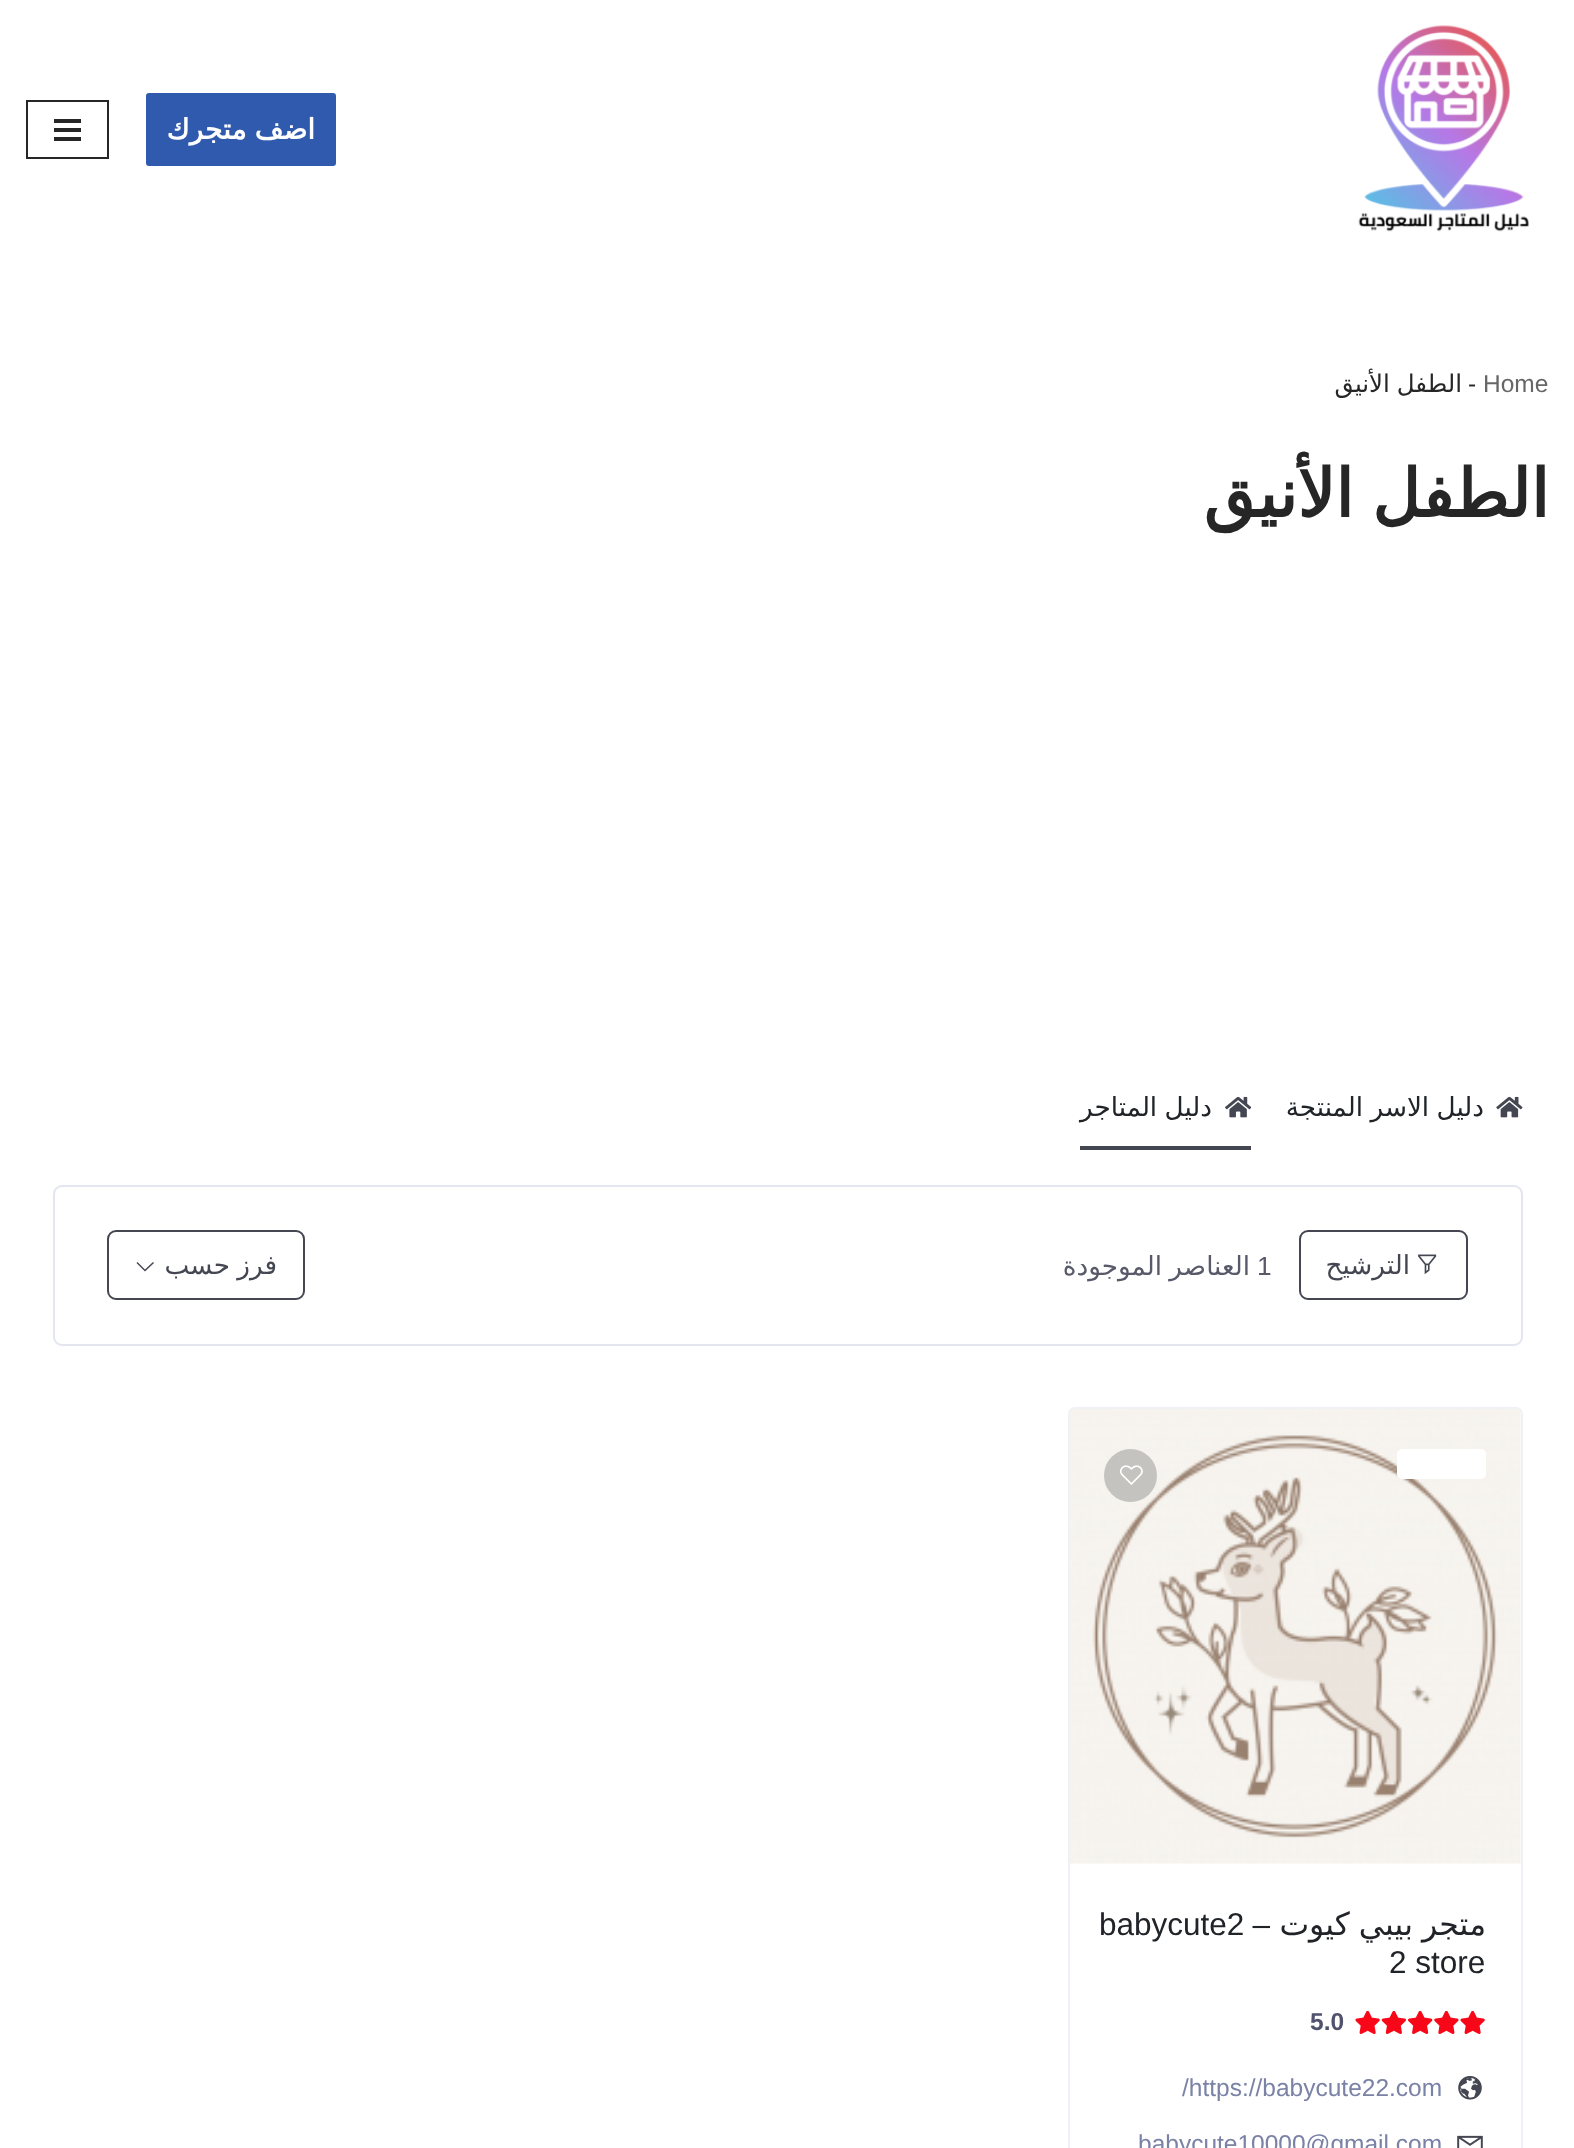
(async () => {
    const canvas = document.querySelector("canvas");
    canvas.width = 1574;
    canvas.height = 2148;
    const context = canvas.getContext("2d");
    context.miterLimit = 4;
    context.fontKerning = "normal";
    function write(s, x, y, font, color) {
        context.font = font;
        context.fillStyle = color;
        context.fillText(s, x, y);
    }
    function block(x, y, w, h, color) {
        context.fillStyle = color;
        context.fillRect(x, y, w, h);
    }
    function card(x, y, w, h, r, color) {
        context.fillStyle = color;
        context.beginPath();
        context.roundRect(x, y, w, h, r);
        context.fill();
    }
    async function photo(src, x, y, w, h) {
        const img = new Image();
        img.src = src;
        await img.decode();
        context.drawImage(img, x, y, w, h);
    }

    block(0, 0, 1574, 2148, "rgb(255, 255, 255)");
    await photo("media/1.png", 1358, 25, 171, 207);
    context.fillStyle = "rgb(47, 90, 174)";
    context.beginPath();
    context.roundRect(145, 92, 192, 75, 4);
    context.fill();
    context.strokeStyle = "rgb(255, 255, 255)";
    context.lineWidth = 2;
    context.stroke();
    context.wordSpacing = "-1px";
    context.direction = "rtl";
    write("اضف متجرك", 315, 139, "bold 28px DejaVu Sans", "rgb(255, 255, 255)");
    context.strokeStyle = "rgb(39, 38, 38)";
    context.strokeRect(27, 101, 81, 57);
    block(54, 119, 27, 4, "rgb(39, 38, 38)");
    block(54, 128, 27, 4, "rgb(39, 38, 38)");
    block(54, 137, 27, 4, "rgb(39, 38, 38)");
    context.wordSpacing = "0px";
    context.direction = "ltr";
    write("Home", 1483, 392, "24.5px Liberation Sans", "rgb(103, 103, 103)");
    write("-", 1468, 392, "24.5px Liberation Sans", "rgb(39, 38, 38)");
    context.wordSpacing = "-1px";
    context.direction = "rtl";
    write("الطفل الأنيق", 1462, 392, "24.5px DejaVu Sans", "rgb(39, 38, 38)");
    context.wordSpacing = "-3px";
    write("الطفل الأنيق", 1549, 517, "bold 66.5px DejaVu Sans", "rgb(39, 38, 38)");
    await photo("media/2.png", 1496, 1096, 27, 22);
    context.wordSpacing = "-1px";
    write("دليل الاسر المنتجة", 1484, 1116, "26.25px DejaVu Sans", "rgb(32, 36, 40)");
    block(1080, 1146, 171, 4, "rgb(68, 71, 82)");
    await photo("media/3.png", 1225, 1096, 26, 22);
    write("دليل المتاجر", 1212, 1116, "26.25px DejaVu Sans", "rgb(32, 36, 40)");
    context.beginPath();
    context.roundRect(54, 1186, 1468, 159, 8);
    context.strokeStyle = "rgb(227, 230, 239)";
    context.stroke();
    context.beginPath();
    context.roundRect(1300, 1231, 167, 68, 8);
    context.strokeStyle = "rgb(68, 71, 82)";
    context.stroke();
    await photo("media/4.png", 1418, 1254, 19, 21);
    context.wordSpacing = "0px";
    write("الترشيح", 1410, 1274, "26.25px DejaVu Sans", "rgb(68, 71, 82)");
    context.direction = "ltr";
    write("1", 1257, 1275, "26.25px Liberation Sans", "rgb(88, 90, 106)");
    context.wordSpacing = "-1px";
    context.direction = "rtl";
    write("العناصر الموجودة", 1250, 1275, "26.25px DejaVu Sans", "rgb(88, 90, 106)");
    context.beginPath();
    context.roundRect(108, 1231, 196, 68, 8);
    context.stroke();
    write("فرز حسب", 277, 1274, "26.25px DejaVu Sans", "rgb(68, 71, 82)");
    context.beginPath();
    context.moveTo(137.5, 1262);
    context.lineTo(136.5, 1263);
    context.lineTo(145, 1271.5);
    context.lineTo(154, 1263);
    context.lineTo(153, 1262);
    context.lineTo(145, 1269.5);
    context.closePath();
    context.fill();
    context.beginPath();
    context.roundRect(1069, 1408, 453, 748, 6);
    context.strokeStyle = "rgb(239, 241, 246)";
    context.stroke();
    await photo("media/5.png", 1069, 1409, 452, 455);
    card(1397, 1449, 89, 30, 5, "rgb(255, 255, 255)");
    context.fillStyle = "rgb(197, 195, 191)";
    context.beginPath();
    context.arc(1130.5, 1475.5, 26.5, 0, Math.PI * 2);
    context.fill();
    await photo("media/6.png", 1119, 1465, 24, 20);
    write("متجر بيبي كيوت", 1486, 1935, "31.5px DejaVu Sans", "rgb(32, 36, 40)");
    context.wordSpacing = "0px";
    write("–", 1270, 1935, "31.5px Liberation Sans", "rgb(32, 36, 40)");
    context.direction = "ltr";
    write("babycute2", 1099, 1935, "31.5px Liberation Sans", "rgb(32, 36, 40)");
    write("2 store", 1389, 1973, "31.5px Liberation Sans", "rgb(32, 36, 40)");
    await photo("media/7.png", 1460, 2011, 25, 23);
    await photo("media/8.png", 1434, 2011, 25, 23);
    await photo("media/9.png", 1408, 2011, 25, 23);
    await photo("media/10.png", 1381, 2011, 25, 23);
    await photo("media/7.png", 1355, 2011, 25, 23);
    write("5.0", 1310, 2030, "bold 24.5px Liberation Sans", "rgb(81, 82, 110)");
    await photo("media/11.png", 1458, 2076, 24, 24);
    write("/https://babycute22.com", 1182, 2096, "24.5px Liberation Sans", "rgb(122, 130, 166)");
    await photo("media/12.png", 1457, 2135, 26, 13);
    write("babycute10000@gmail.com", 1138, 2152, "24.5px Liberation Sans", "rgb(122, 130, 166)");
})();
